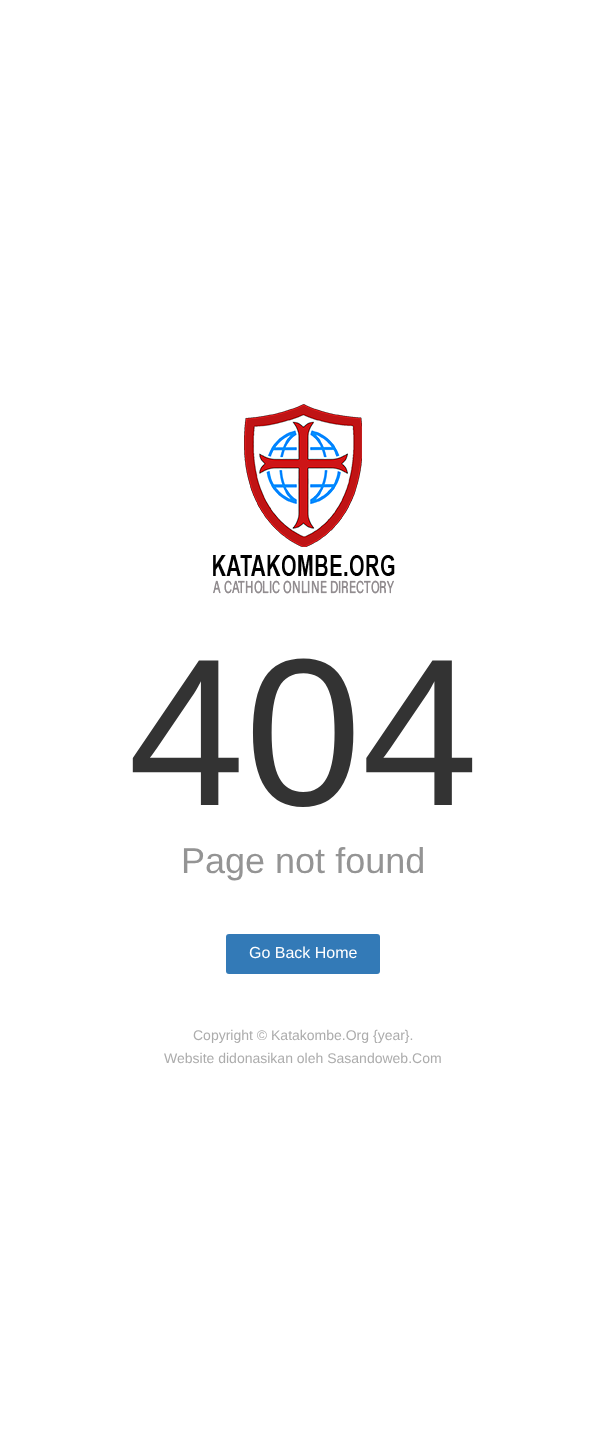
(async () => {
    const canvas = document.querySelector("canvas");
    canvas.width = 606;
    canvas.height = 1441;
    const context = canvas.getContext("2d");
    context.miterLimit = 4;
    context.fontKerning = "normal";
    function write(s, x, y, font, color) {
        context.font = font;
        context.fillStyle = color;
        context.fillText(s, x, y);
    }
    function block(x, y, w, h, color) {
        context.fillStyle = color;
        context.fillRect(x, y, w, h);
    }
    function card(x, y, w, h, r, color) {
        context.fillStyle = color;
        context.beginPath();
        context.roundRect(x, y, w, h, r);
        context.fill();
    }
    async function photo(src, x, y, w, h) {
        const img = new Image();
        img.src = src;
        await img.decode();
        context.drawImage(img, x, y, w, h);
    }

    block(0, 0, 606, 1441, "rgb(255, 255, 255)");
    await photo("media/1.png", 213, 404, 182, 190);
    write("404", 128, 805, "210px Liberation Sans", "rgb(51, 51, 51)");
    write("Page not found", 181, 873, "36px Liberation Sans", "rgb(148, 148, 148)");
    card(226, 934, 154, 40, 3, "rgb(51, 122, 183)");
    write("Go Back Home", 249, 958, "16px Liberation Sans", "rgb(255, 255, 255)");
    write("Copyright © Katakombe.Org {year}.", 193, 1040, "14px Liberation Sans", "rgb(172, 172, 172)");
    write("Website didonasikan oleh Sasandoweb.Com", 164, 1063, "14px Liberation Sans", "rgb(172, 172, 172)");
})();
